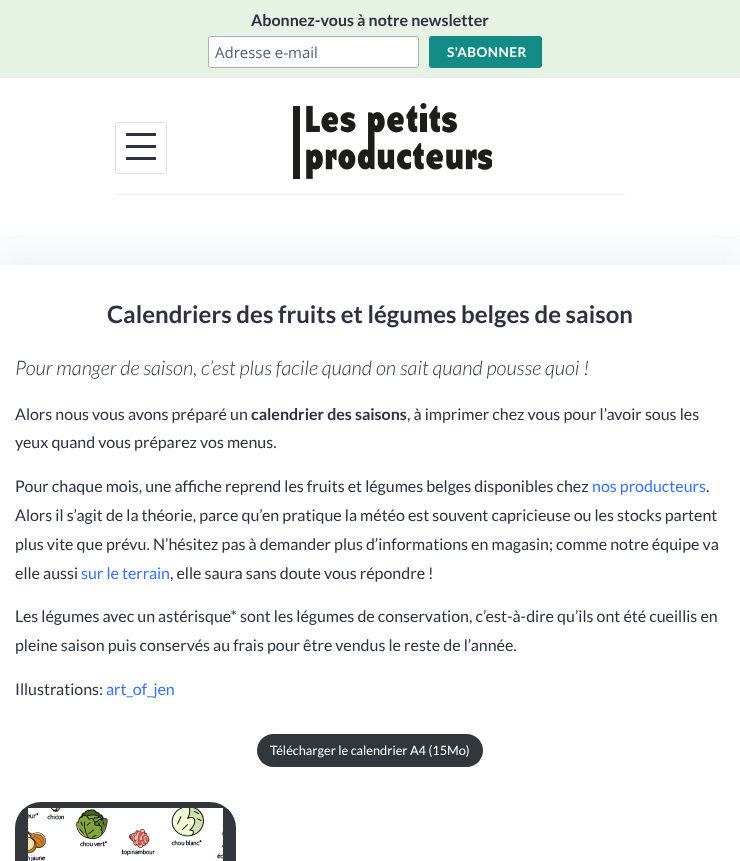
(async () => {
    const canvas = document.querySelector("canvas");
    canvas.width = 740;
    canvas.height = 861;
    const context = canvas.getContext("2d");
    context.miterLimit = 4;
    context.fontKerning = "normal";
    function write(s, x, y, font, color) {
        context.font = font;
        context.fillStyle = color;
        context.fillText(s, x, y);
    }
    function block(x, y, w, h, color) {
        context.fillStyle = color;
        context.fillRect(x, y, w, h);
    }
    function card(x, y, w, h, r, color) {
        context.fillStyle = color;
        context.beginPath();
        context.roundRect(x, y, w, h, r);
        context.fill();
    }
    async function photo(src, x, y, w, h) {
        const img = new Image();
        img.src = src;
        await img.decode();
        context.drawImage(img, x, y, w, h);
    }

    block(0, 0, 740, 861, "rgb(250, 251, 255)");
    block(0, 78, 740, 157, "rgb(255, 255, 255)");
    block(0, 0, 740, 78, "rgb(230, 242, 227)");
    write("Abonnez-vous à notre newsletter", 251, 26, "bold 16px Lato", "rgb(45, 49, 66)");
    context.fillStyle = "rgb(255, 255, 255)";
    context.beginPath();
    context.roundRect(208.5, 36.5, 210, 31, 2.5);
    context.fill();
    context.strokeStyle = "rgb(171, 176, 178)";
    context.stroke();
    write("Adresse e-mail", 215, 58, "15px Open Sans", "rgb(79, 93, 117)");
    card(429, 36, 113, 32, 3, "rgb(20, 140, 134)");
    context.letterSpacing = "0.5px";
    write("S'ABONNER", 447, 57, "bold 13.5px Lato", "rgb(255, 255, 255)");
    block(115, 194, 510, 1, "rgb(242, 242, 242)");
    context.beginPath();
    context.roundRect(115.5, 122.5, 51, 51, 2.5);
    context.strokeStyle = "rgb(221, 221, 221)";
    context.stroke();
    block(126, 133, 30, 3, "rgb(45, 49, 66)");
    block(126, 145, 30, 3, "rgb(45, 49, 66)");
    block(126, 157, 30, 3, "rgb(45, 49, 66)");
    await photo("media/1.png", 293, 103, 199, 76);
    context.fillStyle = "rgba(122, 122, 122, 0.1)";
    context.filter = "blur(16px)";
    context.beginPath();
    context.rect(0, 265, 740, 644);
    context.fill();
    context.filter = "none";
    block(0, 265, 740, 596, "rgb(255, 255, 255)");
    context.letterSpacing = "0px";
    write("Calendriers des fruits et légumes belges de saison", 107, 323, "bold 24px Lato", "rgb(45, 49, 66)");
    write("Pour manger de saison, c’est plus facile quand on sait quand pousse quoi !", 15, 375, "italic 300 20px Lato", "rgb(45, 49, 66)");
    write("Alors nous vous avons préparé un", 15, 420, "16px Lato", "rgb(45, 49, 66)");
    write("calendrier des saisons", 251, 420, "bold 16px Lato", "rgb(45, 49, 66)");
    write(", à imprimer chez vous pour l’avoir sous les", 407, 420, "16px Lato", "rgb(45, 49, 66)");
    write("yeux quand vous préparez vos menus.", 15, 448, "16px Lato", "rgb(45, 49, 66)");
    write("Pour chaque mois, une affiche reprend les fruits et légumes belges disponibles chez", 15, 492, "16px Lato", "rgb(45, 49, 66)");
    write("nos producteurs", 592, 492, "16px Lato", "rgb(55, 114, 254)");
    write(".", 706, 492, "16px Lato", "rgb(45, 49, 66)");
    write("Alors il s’agit de la théorie, parce qu’en pratique la météo est souvent capricieuse ou les stocks partent", 15, 521, "16px Lato", "rgb(45, 49, 66)");
    write("plus vite que prévu. N’hésitez pas à demander plus d’informations en magasin; comme notre équipe va", 15, 550, "16px Lato", "rgb(45, 49, 66)");
    write("elle aussi", 15, 579, "16px Lato", "rgb(45, 49, 66)");
    write("sur le terrain", 81, 579, "16px Lato", "rgb(55, 114, 254)");
    write(", elle saura sans doute vous répondre !", 170, 579, "16px Lato", "rgb(45, 49, 66)");
    write("Les légumes avec un astérisque* sont les légumes de conservation, c’est-à-dire qu’ils ont été cueillis en", 15, 622, "16px Lato", "rgb(45, 49, 66)");
    write("pleine saison puis conservés au frais pour être vendus le reste de l’année.", 15, 651, "16px Lato", "rgb(45, 49, 66)");
    write("Illustrations:", 15, 695, "16px Lato", "rgb(45, 49, 66)");
    write("art_of_jen", 106, 695, "16px Lato", "rgb(55, 114, 254)");
    card(257, 734, 226, 33, 16.5, "rgb(50, 55, 60)");
    write("Télécharger le calendrier A4 (15Mo)", 270, 755, "12.75px Lato", "rgb(255, 255, 255)");
    card(15, 802, 221, 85, 26, "rgb(50, 55, 60)");
    await photo("media/2.png", 28, 808, 195, 53);
})();
